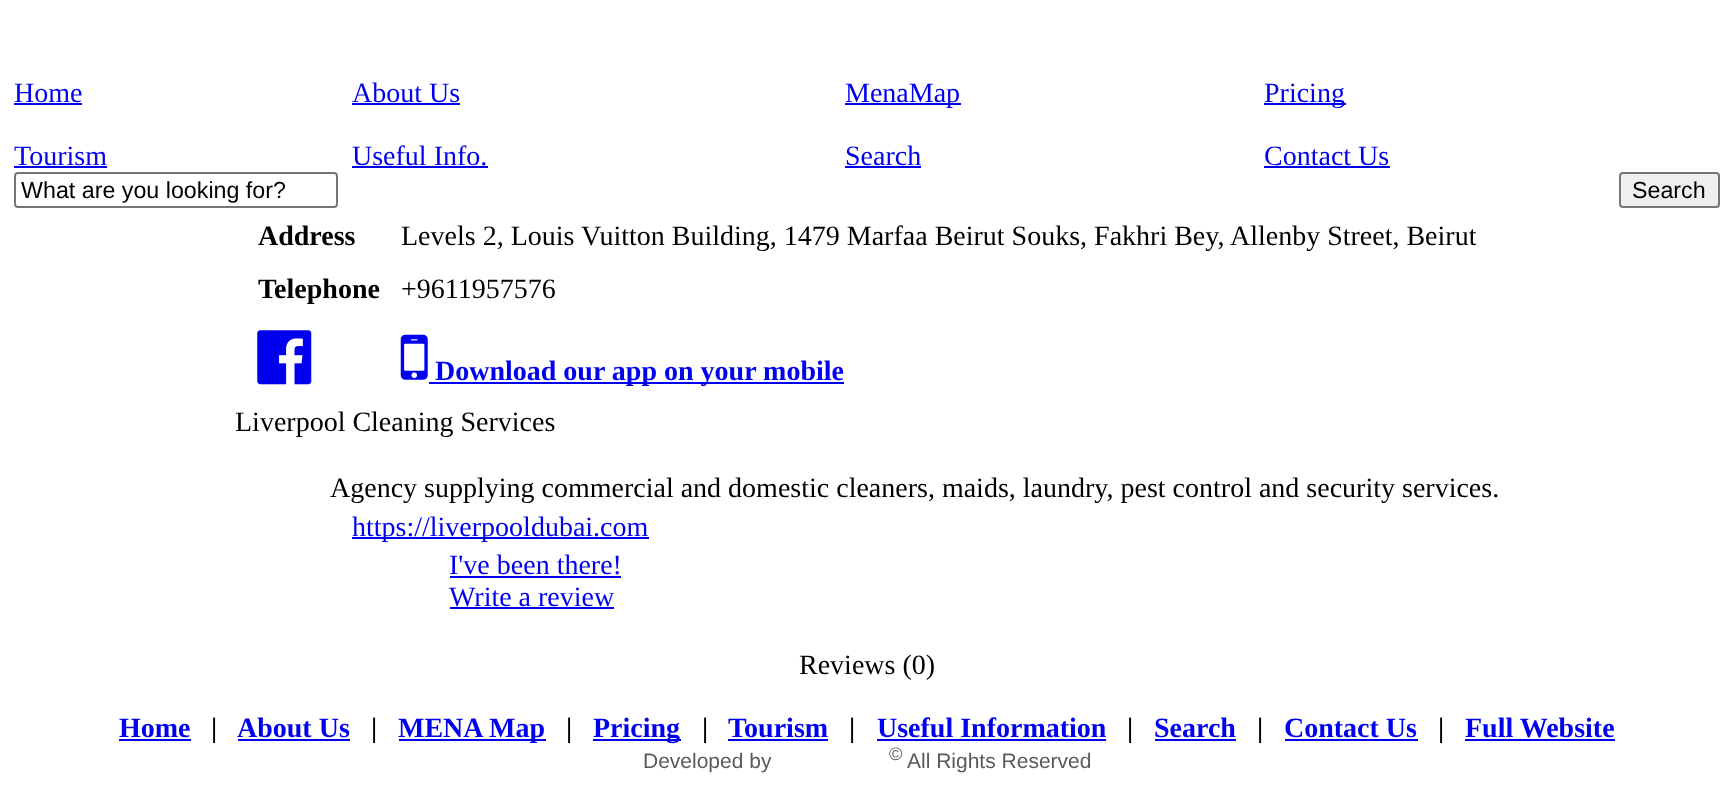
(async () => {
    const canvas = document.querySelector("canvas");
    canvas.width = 1734;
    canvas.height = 799;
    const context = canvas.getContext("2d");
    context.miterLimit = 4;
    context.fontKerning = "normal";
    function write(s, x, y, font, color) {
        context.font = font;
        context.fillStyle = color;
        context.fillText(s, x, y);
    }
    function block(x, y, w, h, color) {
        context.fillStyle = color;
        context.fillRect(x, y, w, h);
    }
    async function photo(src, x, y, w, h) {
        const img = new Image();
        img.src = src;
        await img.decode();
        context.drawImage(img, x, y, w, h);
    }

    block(0, 0, 1734, 799, "rgb(255, 255, 255)");
    write("Home", 14, 102, "28px Liberation Serif", "rgb(0, 0, 238)");
    block(14, 103, 68, 2, "rgb(0, 0, 238)");
    write("About Us", 352, 102, "28px Liberation Serif", "rgb(0, 0, 238)");
    block(352, 103, 108, 2, "rgb(0, 0, 238)");
    block(845, 103, 116, 2, "rgb(0, 0, 238)");
    write("MenaMap", 845, 102, "28px Liberation Serif", "rgb(0, 0, 238)");
    block(1264, 103, 82, 2, "rgb(0, 0, 238)");
    write("Pricing", 1264, 102, "28px Liberation Serif", "rgb(0, 0, 238)");
    write("Tourism", 14, 165, "28px Liberation Serif", "rgb(0, 0, 238)");
    block(14, 166, 93, 2, "rgb(0, 0, 238)");
    write("Useful Info.", 352, 165, "28px Liberation Serif", "rgb(0, 0, 238)");
    block(352, 166, 136, 2, "rgb(0, 0, 238)");
    write("Search", 845, 165, "28px Liberation Serif", "rgb(0, 0, 238)");
    block(845, 166, 76, 2, "rgb(0, 0, 238)");
    write("Contact Us", 1264, 165, "28px Liberation Serif", "rgb(0, 0, 238)");
    block(1264, 166, 126, 2, "rgb(0, 0, 238)");
    context.beginPath();
    context.roundRect(15, 173, 322, 34, 3);
    context.strokeStyle = "rgb(118, 118, 118)";
    context.lineWidth = 2;
    context.stroke();
    write("What are you looking for?", 21, 198, "23.25px Liberation Sans", "rgb(0, 0, 0)");
    context.fillStyle = "rgb(239, 239, 239)";
    context.beginPath();
    context.roundRect(1620, 173, 99, 34, 3);
    context.fill();
    context.stroke();
    write("Search", 1632, 198, "23.25px Liberation Sans", "rgb(0, 0, 0)");
    write("Address", 258, 245, "bold 28px Liberation Serif", "rgb(0, 0, 0)");
    write("Levels 2, Louis Vuitton Building, 1479 Marfaa Beirut Souks, Fakhri Bey, Allenby Street, Beirut", 401, 245, "28px Liberation Serif", "rgb(0, 0, 0)");
    write("Telephone", 258, 298, "bold 28px Liberation Serif", "rgb(0, 0, 0)");
    write("+9611957576", 401, 298, "28px Liberation Serif", "rgb(0, 0, 0)");
    await photo("media/1.png", 257, 330, 55, 55);
    await photo("media/2.png", 400, 334, 28, 46);
    block(429, 382, 415, 2, "rgb(0, 0, 238)");
    write("Download our app on your mobile", 435, 380, "bold 28px Liberation Serif", "rgb(0, 0, 238)");
    write("Liverpool Cleaning Services", 235, 431, "28px Liberation Serif", "rgb(0, 0, 0)");
    write("Agency supplying commercial and domestic cleaners, maids, laundry, pest control and security services.", 330, 497, "28px Liberation Serif", "rgb(0, 0, 0)");
    block(352, 537, 297, 2, "rgb(0, 0, 238)");
    write("https://liverpooldubai.com", 352, 536, "28px Liberation Serif", "rgb(0, 0, 238)");
    write("I've been there!", 449, 574, "28px Liberation Serif", "rgb(0, 0, 238)");
    block(450, 576, 171, 2, "rgb(0, 0, 238)");
    write("Write a review", 449, 606, "28px Liberation Serif", "rgb(0, 0, 238)");
    block(450, 607, 164, 2, "rgb(0, 0, 238)");
    write("Reviews (0)", 799, 674, "28px Liberation Serif", "rgb(0, 0, 0)");
    write("Home", 119, 737, "bold 28px Liberation Serif", "rgb(0, 0, 238)");
    block(119, 739, 72, 2, "rgb(0, 0, 238)");
    write("|", 211, 737, "bold 28px Liberation Serif", "rgb(0, 0, 0)");
    write("About Us", 237, 737, "bold 28px Liberation Serif", "rgb(0, 0, 238)");
    block(238, 739, 112, 2, "rgb(0, 0, 238)");
    write("|", 371, 737, "bold 28px Liberation Serif", "rgb(0, 0, 0)");
    block(399, 739, 147, 2, "rgb(0, 0, 238)");
    write("MENA Map", 398, 737, "bold 28px Liberation Serif", "rgb(0, 0, 238)");
    write("|", 566, 737, "bold 28px Liberation Serif", "rgb(0, 0, 0)");
    block(593, 739, 88, 2, "rgb(0, 0, 238)");
    write("Pricing", 593, 737, "bold 28px Liberation Serif", "rgb(0, 0, 238)");
    write("|", 702, 737, "bold 28px Liberation Serif", "rgb(0, 0, 0)");
    write("Tourism", 728, 737, "bold 28px Liberation Serif", "rgb(0, 0, 238)");
    block(728, 739, 100, 2, "rgb(0, 0, 238)");
    write("|", 849, 737, "bold 28px Liberation Serif", "rgb(0, 0, 0)");
    write("Useful Information", 877, 737, "bold 28px Liberation Serif", "rgb(0, 0, 238)");
    block(877, 739, 229, 2, "rgb(0, 0, 238)");
    write("|", 1127, 737, "bold 28px Liberation Serif", "rgb(0, 0, 0)");
    write("Search", 1154, 737, "bold 28px Liberation Serif", "rgb(0, 0, 238)");
    block(1155, 739, 81, 2, "rgb(0, 0, 238)");
    write("|", 1257, 737, "bold 28px Liberation Serif", "rgb(0, 0, 0)");
    write("Contact Us", 1284, 737, "bold 28px Liberation Serif", "rgb(0, 0, 238)");
    block(1285, 739, 133, 2, "rgb(0, 0, 238)");
    write("|", 1438, 737, "bold 28px Liberation Serif", "rgb(0, 0, 0)");
    write("Full Website", 1465, 737, "bold 28px Liberation Serif", "rgb(0, 0, 238)");
    block(1465, 739, 150, 2, "rgb(0, 0, 238)");
    write("Developed by", 643, 768, "21px Liberation Sans", "rgb(90, 90, 90)");
    write("©", 889, 760, "18px Liberation Sans", "rgb(90, 90, 90)");
    write("All Rights Reserved", 907, 768, "21px Liberation Sans", "rgb(90, 90, 90)");
})();
